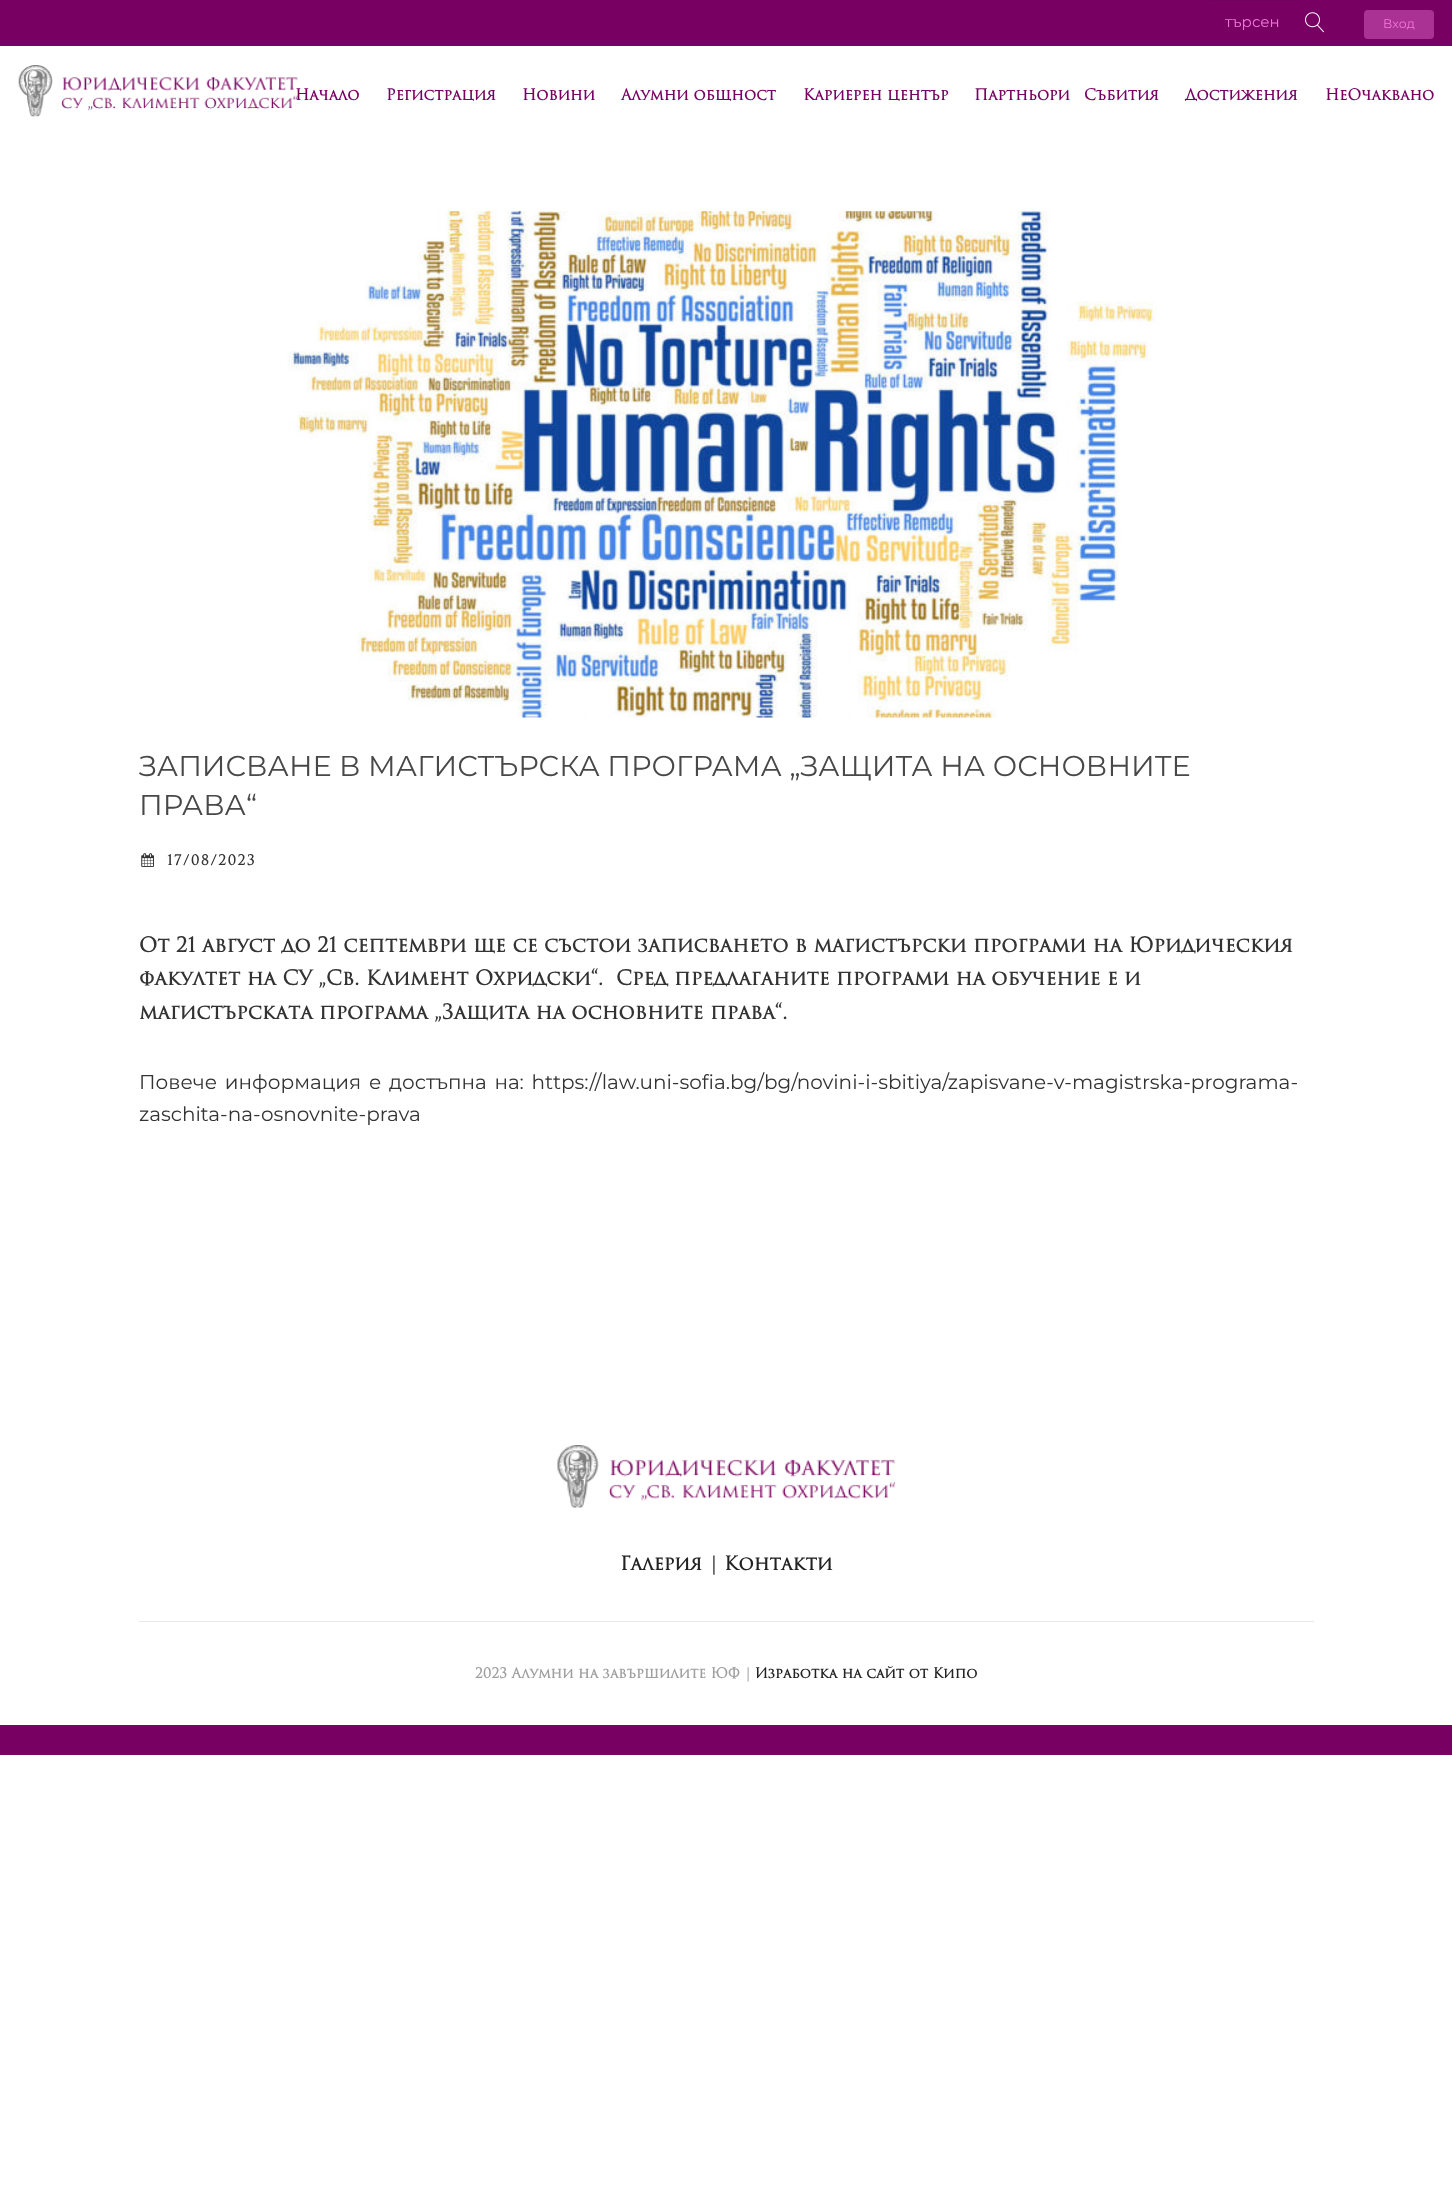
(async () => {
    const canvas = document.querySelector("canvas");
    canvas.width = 1452;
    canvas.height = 2187;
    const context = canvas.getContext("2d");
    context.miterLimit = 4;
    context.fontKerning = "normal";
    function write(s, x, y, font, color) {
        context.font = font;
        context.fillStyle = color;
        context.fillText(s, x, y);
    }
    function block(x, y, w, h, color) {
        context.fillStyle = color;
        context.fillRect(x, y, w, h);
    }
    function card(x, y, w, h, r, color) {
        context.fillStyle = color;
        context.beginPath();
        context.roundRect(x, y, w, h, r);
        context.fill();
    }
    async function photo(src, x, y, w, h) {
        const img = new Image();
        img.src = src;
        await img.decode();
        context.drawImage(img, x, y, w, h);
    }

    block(0, 0, 1452, 2187, "rgb(255, 255, 255)");
    block(0, 0, 1452, 46, "rgb(121, 0, 99)");
    block(1210, 0, 88, 1, "rgb(112, 0, 92)");
    write("търсен", 1225, 27, "15px Montserrat", "rgb(241, 120, 219)");
    await photo("media/1.png", 1305, 12, 19, 21);
    card(1364, 10, 70, 29, 4, "rgb(171, 50, 149)");
    write("Вход", 1383, 28, "12.5px Montserrat", "rgb(241, 120, 219)");
    write("Начало", 295, 100, "bold 15px 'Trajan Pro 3'", "rgb(121, 0, 99)");
    await photo("media/2.png", 18, 65, 280, 52);
    write("Регистрация", 386, 100, "bold 15px 'Trajan Pro 3'", "rgb(121, 0, 99)");
    write("Новини", 522, 100, "bold 15px 'Trajan Pro 3'", "rgb(121, 0, 99)");
    write("Алумни общност", 621, 100, "bold 15px 'Trajan Pro 3'", "rgb(121, 0, 99)");
    write("Кариерен център", 803, 100, "bold 15px 'Trajan Pro 3'", "rgb(121, 0, 99)");
    write("Партньори", 974, 100, "bold 15px 'Trajan Pro 3'", "rgb(121, 0, 99)");
    write("Събития", 1084, 100, "bold 15px 'Trajan Pro 3'", "rgb(121, 0, 99)");
    write("Достижения", 1185, 100, "bold 15px 'Trajan Pro 3'", "rgb(121, 0, 99)");
    write("НеОчаквано", 1325, 100, "bold 15px 'Trajan Pro 3'", "rgb(121, 0, 99)");
    await photo("media/3.png", 287, 211, 870, 507);
    write("ЗАПИСВАНЕ В МАГИСТЪРСКА ПРОГРАМА „ЗАЩИТА НА ОСНОВНИТЕ", 139, 776, "28.75px Montserrat", "rgb(72, 72, 72)");
    write("ПРАВА“", 139, 815, "28.75px Montserrat", "rgb(72, 72, 72)");
    await photo("media/4.png", 141, 853, 13, 14);
    context.letterSpacing = "1.4px";
    write("17/08/2023", 167, 865, "bold 13.75px 'Trajan Pro 3'", "rgb(51, 51, 51)");
    context.letterSpacing = "0px";
    write("От 21 август до 21 септември ще се състои записването в магистърски програми на Юридическия", 139, 952, "bold 20px 'Trajan Pro 3'", "rgb(51, 51, 51)");
    write("факултет на СУ „Св. Климент Охридски“.  Сред предлаганите програми на обучение е и", 139, 985, "bold 20px 'Trajan Pro 3'", "rgb(51, 51, 51)");
    write("магистърската програма „Защита на основните права“.", 139, 1019, "bold 20px 'Trajan Pro 3'", "rgb(51, 51, 51)");
    context.wordSpacing = "2.5px";
    write("Повече информация е достъпна на: https://law.uni-sofia.bg/bg/novini-i-sbitiya/zapisvane-v-magistrska-programa-", 139, 1089, "20px Montserrat", "rgb(51, 51, 51)");
    context.wordSpacing = "0px";
    write("zaschita-na-osnovnite-prava", 139, 1121, "20px Montserrat", "rgb(51, 51, 51)");
    block(0, 1725, 1452, 30, "rgb(121, 0, 99)");
    block(139, 1621, 1175, 1, "rgb(233, 233, 233)");
    await photo("media/5.png", 557, 1445, 339, 63);
    write("Галерия", 620, 1570, "bold 18.75px 'Trajan Pro 3'", "rgb(34, 34, 34)");
    write("|", 709, 1570, "bold 18.75px 'Trajan Pro 3'", "rgb(51, 51, 51)");
    write("Контакти", 724, 1570, "bold 18.75px 'Trajan Pro 3'", "rgb(34, 34, 34)");
    write("2023 Алумни на завършилите ЮФ |", 475, 1678, "bold 13.75px 'Trajan Pro 3'", "rgb(159, 159, 159)");
    write("Изработка на сайт от Кипо", 755, 1678, "bold 13.75px 'Trajan Pro 3'", "rgb(34, 34, 34)");
})();
